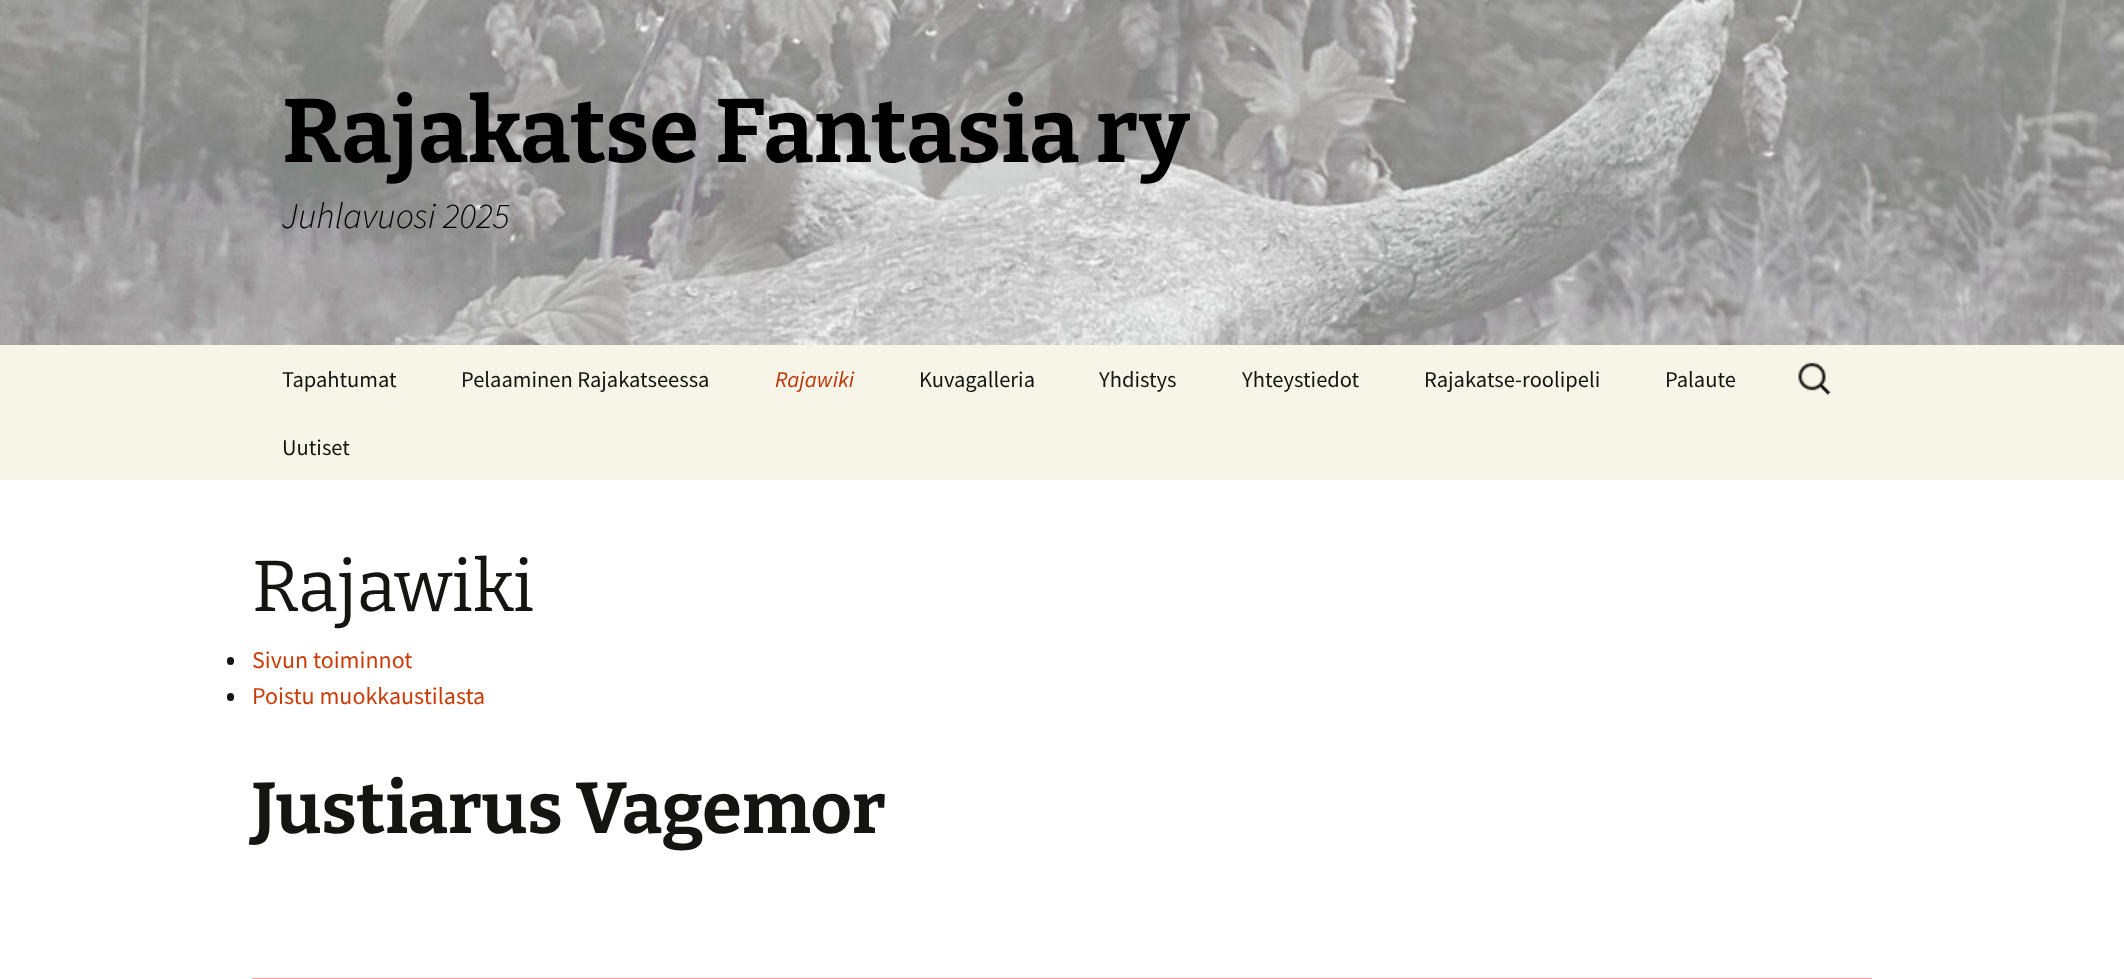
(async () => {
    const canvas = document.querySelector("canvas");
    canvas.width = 2124;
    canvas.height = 979;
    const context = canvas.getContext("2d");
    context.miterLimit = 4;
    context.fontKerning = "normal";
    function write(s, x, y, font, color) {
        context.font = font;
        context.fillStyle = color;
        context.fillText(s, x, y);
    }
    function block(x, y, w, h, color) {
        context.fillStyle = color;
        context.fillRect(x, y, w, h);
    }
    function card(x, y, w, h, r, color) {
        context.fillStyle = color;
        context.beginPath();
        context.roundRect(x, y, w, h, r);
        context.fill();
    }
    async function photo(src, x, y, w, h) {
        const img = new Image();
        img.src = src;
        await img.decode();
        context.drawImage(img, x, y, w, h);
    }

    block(0, 0, 2124, 979, "rgb(255, 255, 255)");
    await photo("media/1.png", 0, 0, 2124, 345);
    write("Rajakatse Fantasia ry", 282, 162, "100 90px Bitter", "rgb(0, 0, 0)");
    write("Juhlavuosi 2025", 282, 228, "italic 300 36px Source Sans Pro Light", "rgb(0, 0, 0)");
    block(0, 345, 2124, 135, "rgb(247, 245, 231)");
    write("Tapahtumat", 282, 387, "22.5px Source Sans Pro", "rgb(20, 20, 18)");
    write("Pelaaminen Rajakatseessa", 461, 387, "22.5px Source Sans Pro", "rgb(20, 20, 18)");
    write("Rajawiki", 775, 387, "italic 22.5px Source Sans Pro", "rgb(188, 54, 10)");
    write("Kuvagalleria", 919, 387, "22.5px Source Sans Pro", "rgb(20, 20, 18)");
    write("Yhdistys", 1099, 387, "22.5px Source Sans Pro", "rgb(20, 20, 18)");
    write("Yhteystiedot", 1242, 387, "22.5px Source Sans Pro", "rgb(20, 20, 18)");
    write("Rajakatse-roolipeli", 1424, 387, "22.5px Source Sans Pro", "rgb(20, 20, 18)");
    write("Palaute", 1665, 387, "22.5px Source Sans Pro", "rgb(20, 20, 18)");
    write("Uutiset", 282, 455, "22.5px Source Sans Pro", "rgb(20, 20, 18)");
    await photo("media/2.png", 1798, 362, 33, 33);
    write("Rajawiki", 252, 611, "100 72px 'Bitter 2'", "rgb(20, 20, 18)");
    card(227, 657, 7, 8, 3.5, "rgb(20, 20, 18)");
    write("Sivun toiminnot", 252, 668, "24px Source Sans Pro", "rgb(202, 60, 8)");
    card(227, 693, 7, 8, 3.5, "rgb(20, 20, 18)");
    write("Poistu muokkaustilasta", 252, 704, "24px Source Sans Pro", "rgb(202, 60, 8)");
    write("Justiarus Vagemor", 252, 833, "100 72px Bitter", "rgb(20, 20, 18)");
    block(252, 978, 1620, 1, "rgb(255, 153, 153)");
})();
